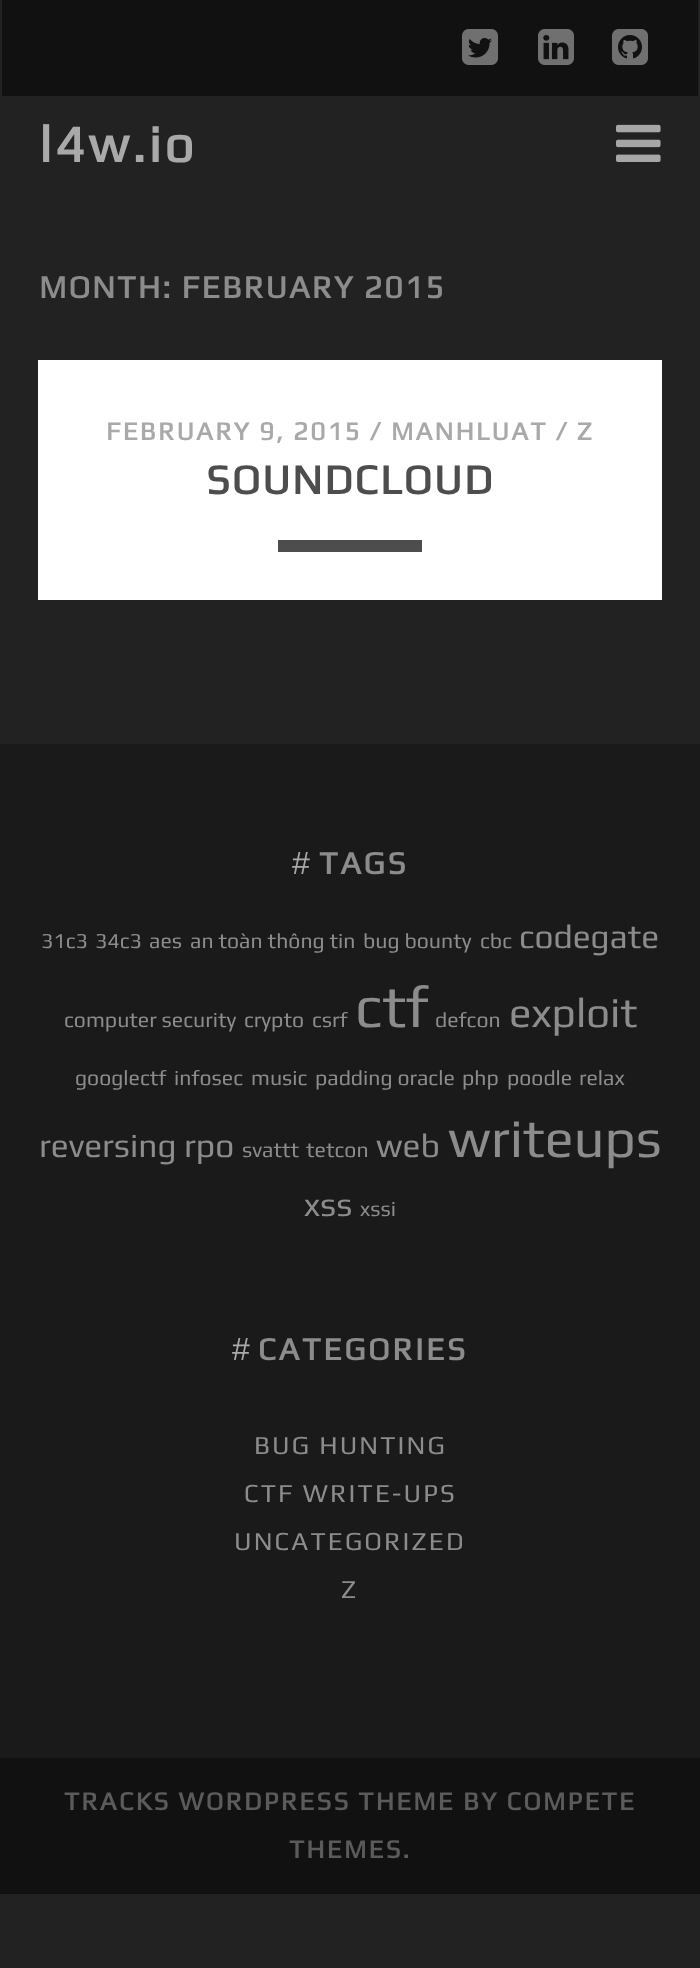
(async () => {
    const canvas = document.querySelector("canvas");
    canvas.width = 700;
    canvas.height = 1968;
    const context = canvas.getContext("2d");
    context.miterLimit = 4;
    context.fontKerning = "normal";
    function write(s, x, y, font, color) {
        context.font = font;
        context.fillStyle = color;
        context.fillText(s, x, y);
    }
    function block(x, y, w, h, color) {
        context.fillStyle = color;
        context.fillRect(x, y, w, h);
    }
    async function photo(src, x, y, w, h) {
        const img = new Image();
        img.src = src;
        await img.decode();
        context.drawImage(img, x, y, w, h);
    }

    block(0, 0, 700, 1968, "rgb(34, 34, 34)");
    block(2, 0, 696, 96, "rgb(17, 17, 17)");
    await photo("media/1.png", 462, 29, 36, 36);
    await photo("media/2.png", 538, 29, 36, 36);
    await photo("media/3.png", 612, 29, 36, 36);
    context.letterSpacing = "3px";
    write("l4w.io", 39, 162, "bold 52px Play", "rgb(169, 169, 169)");
    await photo("media/4.png", 616, 124, 45, 38);
    context.letterSpacing = "1.9px";
    write("MONTH: FEBRUARY 2015", 39, 298, "bold 32px Play", "rgb(140, 140, 140)");
    block(38, 360, 624, 240, "rgb(255, 255, 255)");
    context.letterSpacing = "2.1px";
    write("FEBRUARY 9, 2015 / MANHLUAT / Z", 106, 440, "bold 26px Play", "rgb(169, 169, 169)");
    context.letterSpacing = "1.75px";
    write("SOUNDCLOUD", 206, 494, "bold 42px Play", "rgb(77, 77, 77)");
    block(278, 540, 144, 12, "rgb(77, 77, 77)");
    block(0, 744, 700, 1014, "rgb(26, 26, 26)");
    context.letterSpacing = "2.5px";
    write("#", 292, 874, "32px Liberation Sans", "rgb(169, 169, 169)");
    write("TAGS", 319, 874, "bold 32px Play", "rgb(140, 140, 140)");
    context.letterSpacing = "0px";
    write("31c3", 41, 948, "21.25px Play", "rgb(140, 140, 140)");
    write("34c3", 95, 948, "21.25px Play", "rgb(140, 140, 140)");
    write("aes", 149, 948, "21.25px Play", "rgb(140, 140, 140)");
    write("an toàn thông tin", 190, 948, "21.25px Play", "rgb(140, 140, 140)");
    write("bug bounty", 363, 948, "21.25px Play", "rgb(140, 140, 140)");
    write("cbc", 480, 948, "21.25px Play", "rgb(140, 140, 140)");
    write("codegate", 519, 948, "33.5px Play", "rgb(140, 140, 140)");
    write("computer security", 64, 1027, "21.25px Play", "rgb(140, 140, 140)");
    write("crypto", 244, 1027, "21.25px Play", "rgb(140, 140, 140)");
    write("csrf", 312, 1027, "21.25px Play", "rgb(140, 140, 140)");
    write("ctf", 355, 1027, "59px Play", "rgb(140, 140, 140)");
    write("defcon", 435, 1027, "21.25px Play", "rgb(140, 140, 140)");
    write("exploit", 509, 1027, "42px Play", "rgb(140, 140, 140)");
    write("googlectf", 75, 1085, "21.25px Play", "rgb(140, 140, 140)");
    write("infosec", 174, 1085, "21.25px Play", "rgb(140, 140, 140)");
    write("music", 251, 1085, "21.25px Play", "rgb(140, 140, 140)");
    write("padding oracle", 315, 1085, "21.25px Play", "rgb(140, 140, 140)");
    write("php", 462, 1085, "21.25px Play", "rgb(140, 140, 140)");
    write("poodle", 507, 1085, "21.25px Play", "rgb(140, 140, 140)");
    write("relax", 579, 1085, "21.25px Play", "rgb(140, 140, 140)");
    write("reversing", 39, 1157, "33.5px Play", "rgb(140, 140, 140)");
    write("rpo", 184, 1157, "33.5px Play", "rgb(140, 140, 140)");
    write("svattt", 242, 1157, "21.25px Play", "rgb(140, 140, 140)");
    write("tetcon", 306, 1157, "21.25px Play", "rgb(140, 140, 140)");
    write("web", 376, 1157, "33.5px Play", "rgb(140, 140, 140)");
    write("writeups", 448, 1157, "54px Play", "rgb(140, 140, 140)");
    write("xss", 304, 1216, "33.5px Play", "rgb(140, 140, 140)");
    write("xssi", 360, 1216, "21.25px Play", "rgb(140, 140, 140)");
    context.letterSpacing = "2.5px";
    write("#", 232, 1360, "32px Liberation Sans", "rgb(169, 169, 169)");
    write("CATEGORIES", 258, 1360, "bold 32px Play", "rgb(140, 140, 140)");
    context.letterSpacing = "2.1px";
    write("BUG HUNTING", 254, 1454, "26px Play", "rgb(140, 140, 140)");
    write("CTF WRITE-UPS", 244, 1502, "26px Play", "rgb(140, 140, 140)");
    write("UNCATEGORIZED", 234, 1550, "26px Play", "rgb(140, 140, 140)");
    write("Z", 341, 1598, "26px Play", "rgb(140, 140, 140)");
    block(0, 1758, 700, 136, "rgb(17, 17, 17)");
    write("TRACKS WORDPRESS THEME BY COMPETE", 64, 1810, "bold 26px Play", "rgb(91, 91, 91)");
    write("THEMES.", 289, 1858, "bold 26px Play", "rgb(91, 91, 91)");
})();
